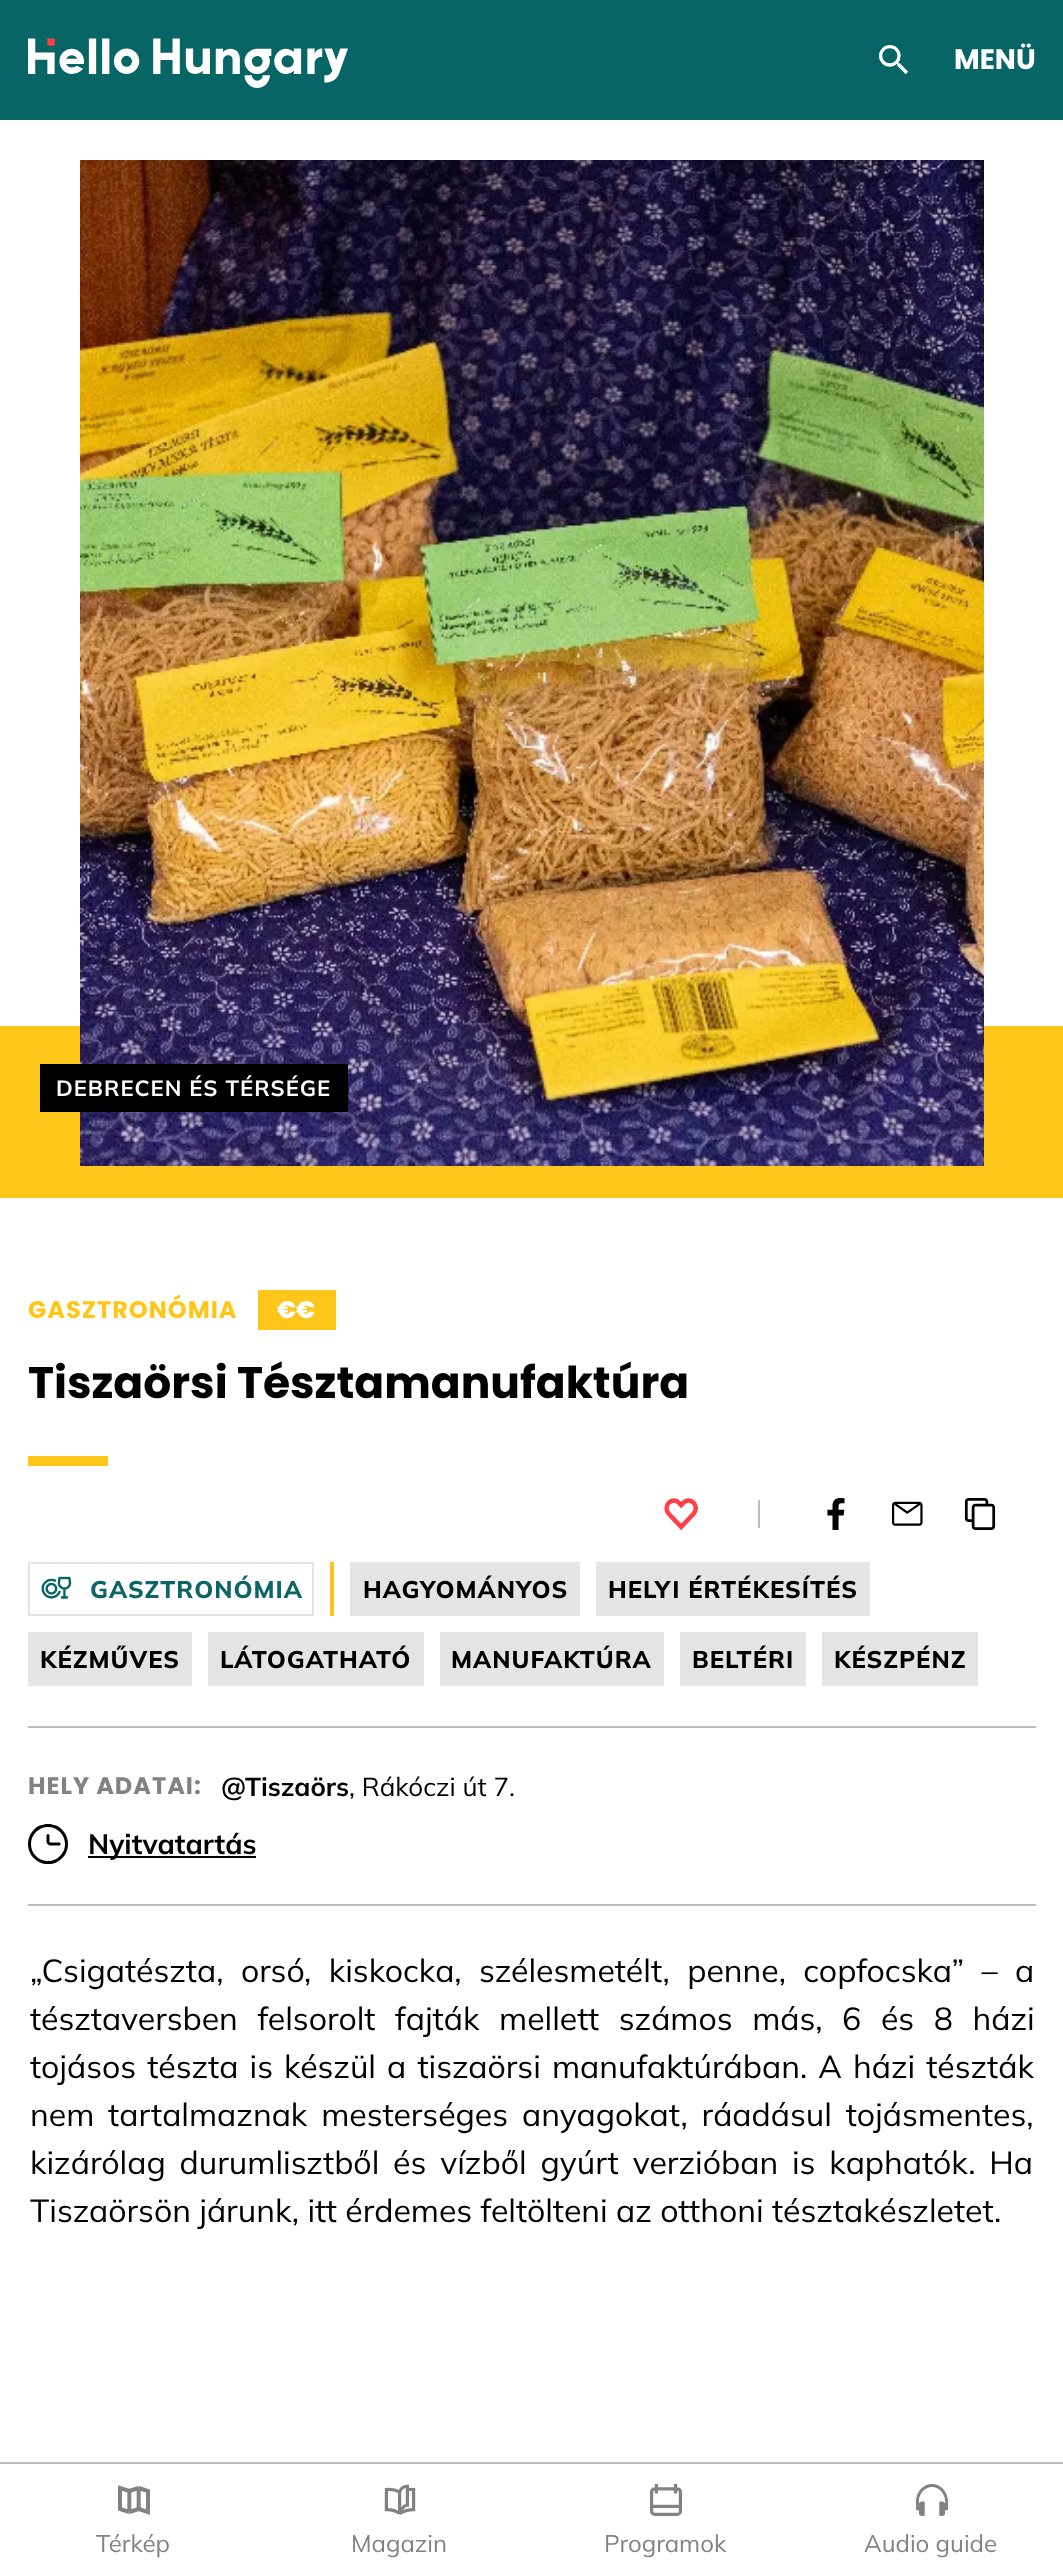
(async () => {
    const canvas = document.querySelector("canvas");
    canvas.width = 1063;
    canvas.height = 2575;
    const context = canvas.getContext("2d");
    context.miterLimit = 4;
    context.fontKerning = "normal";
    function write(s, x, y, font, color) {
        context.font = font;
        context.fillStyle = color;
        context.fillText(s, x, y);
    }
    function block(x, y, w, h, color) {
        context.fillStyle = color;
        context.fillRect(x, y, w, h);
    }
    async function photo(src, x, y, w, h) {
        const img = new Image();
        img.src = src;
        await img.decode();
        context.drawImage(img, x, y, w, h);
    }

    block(0, 0, 1063, 2575, "rgb(255, 255, 255)");
    block(0, 0, 1063, 120, "rgb(8, 101, 101)");
    await photo("media/1.png", 28, 38, 320, 50);
    await photo("media/2.png", 879, 45, 29, 30);
    write("MENÜ", 954, 69, "bold 28px Poppins", "rgb(255, 255, 255)");
    block(0, 1026, 1063, 172, "rgb(255, 198, 26)");
    await photo("media/3.png", 80, 160, 904, 1006);
    block(40, 1064, 308, 48, "rgb(0, 0, 0)");
    context.letterSpacing = "1px";
    write("DEBRECEN ÉS TÉRSÉGE", 56, 1096, "200 22px 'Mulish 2'", "rgb(255, 255, 255)");
    write("GASZTRONÓMIA", 28, 1318, "bold 24px Poppins", "rgb(255, 198, 26)");
    block(258, 1290, 78, 40, "rgb(255, 198, 26)");
    context.letterSpacing = "0px";
    write("€€", 277, 1318, "800 24px Poppins", "rgb(255, 255, 255)");
    write("Tiszaörsi Tésztamanufaktúra", 28, 1398, "bold 44px Poppins", "rgb(0, 0, 0)");
    block(28, 1456, 80, 10, "rgb(255, 198, 26)");
    await photo("media/4.png", 664, 1498, 34, 33);
    block(758, 1500, 2, 28, "rgb(189, 189, 189)");
    await photo("media/5.png", 827, 1498, 18, 32);
    await photo("media/6.png", 892, 1501, 31, 25);
    await photo("media/7.png", 964, 1498, 32, 32);
    context.strokeStyle = "rgb(228, 228, 228)";
    context.lineWidth = 2;
    context.strokeRect(29, 1563, 284, 52);
    await photo("media/8.png", 41, 1576, 31, 23);
    context.letterSpacing = "1px";
    write("GASZTRONÓMIA", 90, 1598, "200 24px Mulish", "rgb(13, 101, 101)");
    block(330, 1562, 4, 54, "rgb(255, 198, 26)");
    block(350, 1562, 230, 54, "rgb(228, 228, 228)");
    write("HAGYOMÁNYOS", 363, 1598, "200 24px Mulish", "rgb(0, 0, 0)");
    block(596, 1562, 274, 54, "rgb(228, 228, 228)");
    write("HELYI ÉRTÉKESÍTÉS", 608, 1598, "200 24px Mulish", "rgb(0, 0, 0)");
    block(28, 1632, 164, 54, "rgb(228, 228, 228)");
    write("KÉZMŰVES", 40, 1668, "200 24px Mulish", "rgb(0, 0, 0)");
    block(208, 1632, 216, 54, "rgb(228, 228, 228)");
    write("LÁTOGATHATÓ", 220, 1668, "200 24px Mulish", "rgb(0, 0, 0)");
    block(440, 1632, 224, 54, "rgb(228, 228, 228)");
    write("MANUFAKTÚRA", 451, 1668, "200 24px Mulish", "rgb(0, 0, 0)");
    block(680, 1632, 126, 54, "rgb(228, 228, 228)");
    write("BELTÉRI", 692, 1668, "200 24px Mulish", "rgb(0, 0, 0)");
    block(822, 1632, 156, 54, "rgb(228, 228, 228)");
    write("KÉSZPÉNZ", 834, 1668, "200 24px Mulish", "rgb(0, 0, 0)");
    block(28, 1726, 1008, 2, "rgb(189, 189, 189)");
    write("HELY ADATAI:", 28, 1794, "bold 24px Poppins", "rgb(130, 130, 130)");
    context.letterSpacing = "0px";
    write("@Tiszaörs", 221, 1796, "200 26px 'Mulish 2'", "rgb(0, 0, 0)");
    write(", Rákóczi út 7.", 349, 1796, "200 26px 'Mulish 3'", "rgb(0, 0, 0)");
    await photo("media/9.png", 28, 1824, 40, 40);
    block(88, 1856, 168, 2, "rgb(0, 0, 0)");
    write("Nyitvatartás", 88, 1854, "200 28px 'Mulish 2'", "rgb(0, 0, 0)");
    block(28, 1904, 1008, 2, "rgb(189, 189, 189)");
    context.wordSpacing = "9px";
    write("„Csigatészta, orsó, kiskocka, szélesmetélt, penne, copfocska” – a", 30, 1982, "200 32px 'Mulish 3'", "rgb(0, 0, 0)");
    context.wordSpacing = "11.25px";
    write("tésztaversben felsorolt fajták mellett számos más, 6 és 8 házi", 30, 2030, "200 32px 'Mulish 3'", "rgb(0, 0, 0)");
    context.wordSpacing = "2.75px";
    write("tojásos tészta is készül a tiszaörsi manufaktúrában. A házi tészták", 30, 2078, "200 32px 'Mulish 3'", "rgb(0, 0, 0)");
    context.wordSpacing = "5.5px";
    write("nem tartalmaznak mesterséges anyagokat, ráadásul tojásmentes,", 30, 2126, "200 32px 'Mulish 3'", "rgb(0, 0, 0)");
    write("kizárólag durumlisztből és vízből gyúrt verzióban is kaphatók. Ha", 30, 2174, "200 32px 'Mulish 3'", "rgb(0, 0, 0)");
    context.wordSpacing = "0px";
    write("Tiszaörsön járunk, itt érdemes feltölteni az otthoni tésztakészletet.", 30, 2222, "200 32px 'Mulish 3'", "rgb(0, 0, 0)");
    block(0, 2462, 1063, 2, "rgb(189, 189, 189)");
    await photo("media/10.png", 118, 2485, 32, 30);
    write("Térkép", 96, 2552, "200 24px 'Mulish 3'", "rgb(130, 130, 130)");
    await photo("media/11.png", 384, 2484, 32, 31);
    write("Magazin", 351, 2552, "200 24px 'Mulish 3'", "rgb(130, 130, 130)");
    await photo("media/12.png", 650, 2484, 32, 32);
    write("Programok", 604, 2552, "200 24px 'Mulish 3'", "rgb(130, 130, 130)");
    await photo("media/13.png", 916, 2484, 32, 32);
    write("Audio guide", 864, 2552, "200 24px 'Mulish 3'", "rgb(130, 130, 130)");
})();
